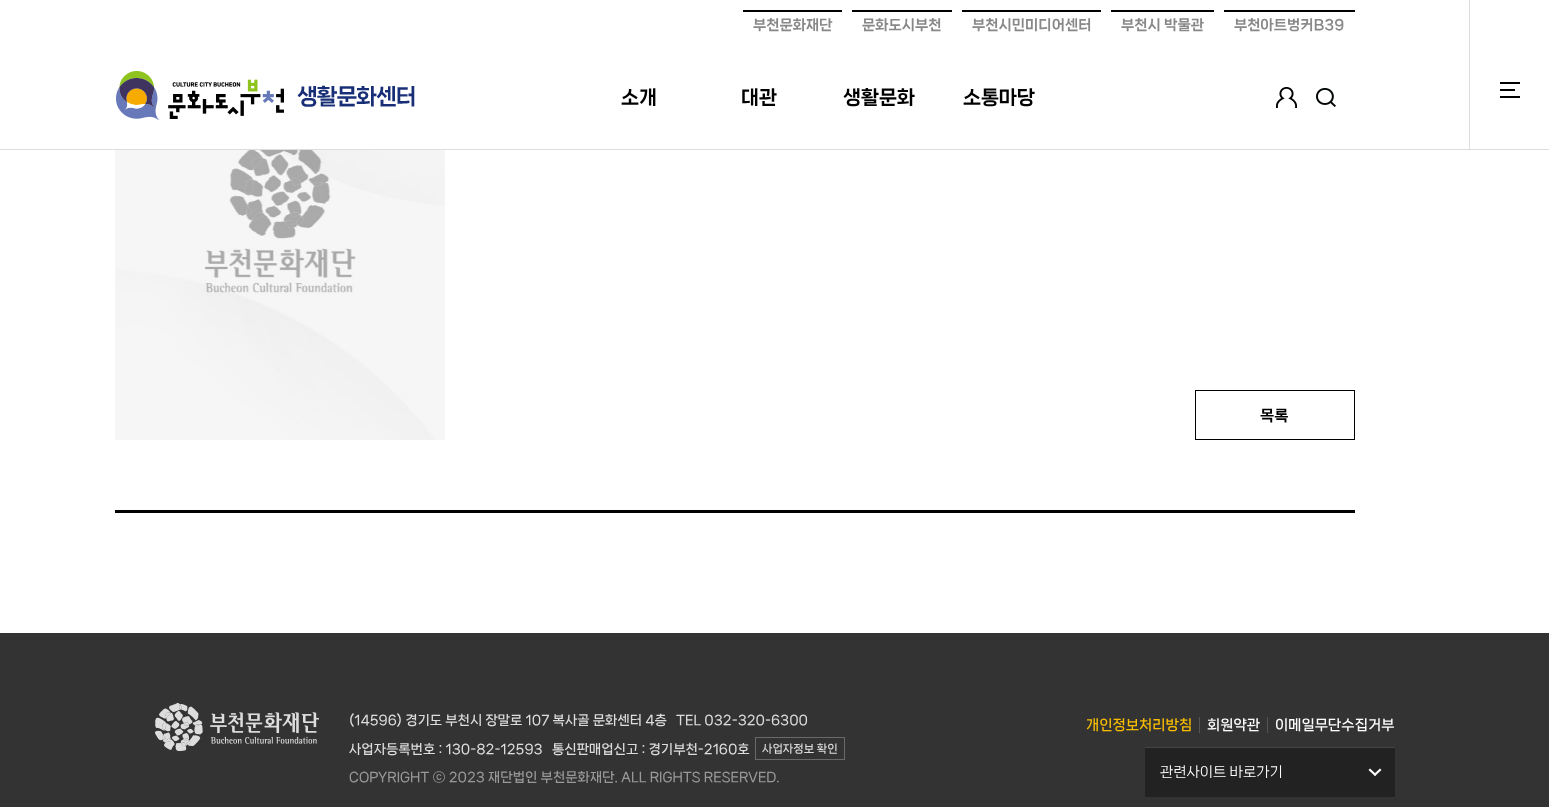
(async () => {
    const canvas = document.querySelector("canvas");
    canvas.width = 1549;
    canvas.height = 807;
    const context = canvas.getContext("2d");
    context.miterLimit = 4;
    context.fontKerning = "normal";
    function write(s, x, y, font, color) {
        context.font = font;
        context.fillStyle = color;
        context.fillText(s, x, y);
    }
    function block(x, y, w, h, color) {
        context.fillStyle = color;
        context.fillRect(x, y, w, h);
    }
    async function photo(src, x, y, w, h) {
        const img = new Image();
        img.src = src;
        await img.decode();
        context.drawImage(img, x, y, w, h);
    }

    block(0, 0, 1549, 807, "rgb(255, 255, 255)");
    await photo("media/1.png", 116, 71, 299, 49);
    block(743, 10, 99, 2, "rgb(0, 0, 0)");
    write("부천문화재단", 753, 29, "800 14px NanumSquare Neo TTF", "rgb(136, 136, 136)");
    block(852, 10, 100, 2, "rgb(0, 0, 0)");
    write("문화도시부천", 862, 29, "800 14px NanumSquare Neo TTF", "rgb(136, 136, 136)");
    block(962, 10, 139, 2, "rgb(0, 0, 0)");
    write("부천시민미디어센터", 972, 29, "800 14px NanumSquare Neo TTF", "rgb(136, 136, 136)");
    block(1111, 10, 103, 2, "rgb(0, 0, 0)");
    write("부천시 박물관", 1121, 29, "800 14px NanumSquare Neo TTF", "rgb(136, 136, 136)");
    block(1224, 10, 131, 2, "rgb(0, 0, 0)");
    write("부천아트벙커B39", 1234, 29, "800 14px NanumSquare Neo TTF", "rgb(136, 136, 136)");
    write("소개", 621, 103, "800 19px NanumSquare Neo TTF", "rgb(0, 0, 0)");
    write("대관", 741, 103, "800 19px NanumSquare Neo TTF", "rgb(0, 0, 0)");
    write("생활문화", 843, 103, "800 19px NanumSquare Neo TTF", "rgb(0, 0, 0)");
    write("소통마당", 963, 103, "800 19px NanumSquare Neo TTF", "rgb(0, 0, 0)");
    await photo("media/2.png", 1276, 87, 21, 21);
    await photo("media/3.png", 1316, 88, 20, 19);
    block(0, 149, 1469, 1, "rgb(221, 221, 221)");
    block(1469, 0, 1, 150, "rgb(221, 221, 221)");
    block(1470, 149, 79, 1, "rgb(221, 221, 221)");
    await photo("media/4.png", 1500, 82, 20, 16);
    block(115, 510, 1240, 3, "rgb(0, 0, 0)");
    await photo("media/5.png", 115, 150, 330, 290);
    context.strokeStyle = "rgb(0, 0, 0)";
    context.strokeRect(1195.5, 390.5, 159, 49);
    write("목록", 1260, 420, "800 15px NanumSquare Neo TTF", "rgb(0, 0, 0)");
    block(0, 633, 1549, 174, "rgb(51, 51, 51)");
    await photo("media/6.png", 155, 703, 164, 48);
    write("(14596) 경기도 부천시 장말로 107 복사골 문화센터 4층", 349, 724, "bold 13px NanumSquare Neo TTF", "rgb(221, 221, 221)");
    write("TEL 032-320-6300", 676, 724, "bold 13px NanumSquare Neo TTF", "rgb(221, 221, 221)");
    write("사업자등록번호 : 130-82-12593", 349, 753, "bold 13px NanumSquare Neo TTF", "rgb(221, 221, 221)");
    write("통신판매업신고 : 경기부천-2160호", 552, 753, "bold 13px NanumSquare Neo TTF", "rgb(221, 221, 221)");
    context.strokeStyle = "rgb(105, 105, 105)";
    context.strokeRect(755.5, 737.5, 89, 22);
    write("사업자정보 확인", 762, 752, "bold 11px NanumSquare Neo TTF", "rgb(221, 221, 221)");
    write("COPYRIGHT ⓒ 2023 재단법인 부천문화재단. ALL RIGHTS RESERVED.", 349, 781, "bold 13px NanumSquare Neo TTF", "rgb(153, 153, 153)");
    block(1199, 717, 1, 16, "rgb(85, 85, 85)");
    write("개인정보처리방침", 1086, 729, "bold 14px NanumSquare Neo TTF", "rgb(250, 190, 0)");
    block(1267, 717, 1, 16, "rgb(85, 85, 85)");
    write("회원약관", 1207, 729, "bold 14px NanumSquare Neo TTF", "rgb(255, 255, 255)");
    write("이메일무단수집거부", 1275, 729, "bold 14px NanumSquare Neo TTF", "rgb(255, 255, 255)");
    block(1145, 748, 250, 49, "rgb(34, 34, 34)");
    block(1145, 747, 250, 1, "rgb(68, 68, 68)");
    write("관련사이트 바로가기", 1160, 776, "14px NanumSquare Neo TTF", "rgb(255, 255, 255)");
    context.beginPath();
    context.moveTo(1375, 776);
    context.lineTo(1368.5, 770);
    context.lineTo(1370, 768.5);
    context.lineTo(1376.5, 774.5);
    context.closePath();
    context.fill();
    context.beginPath();
    context.moveTo(1375, 776);
    context.lineTo(1373.5, 774.5);
    context.lineTo(1380, 768.5);
    context.lineTo(1381.5, 770);
    context.closePath();
    context.fill();
})();
